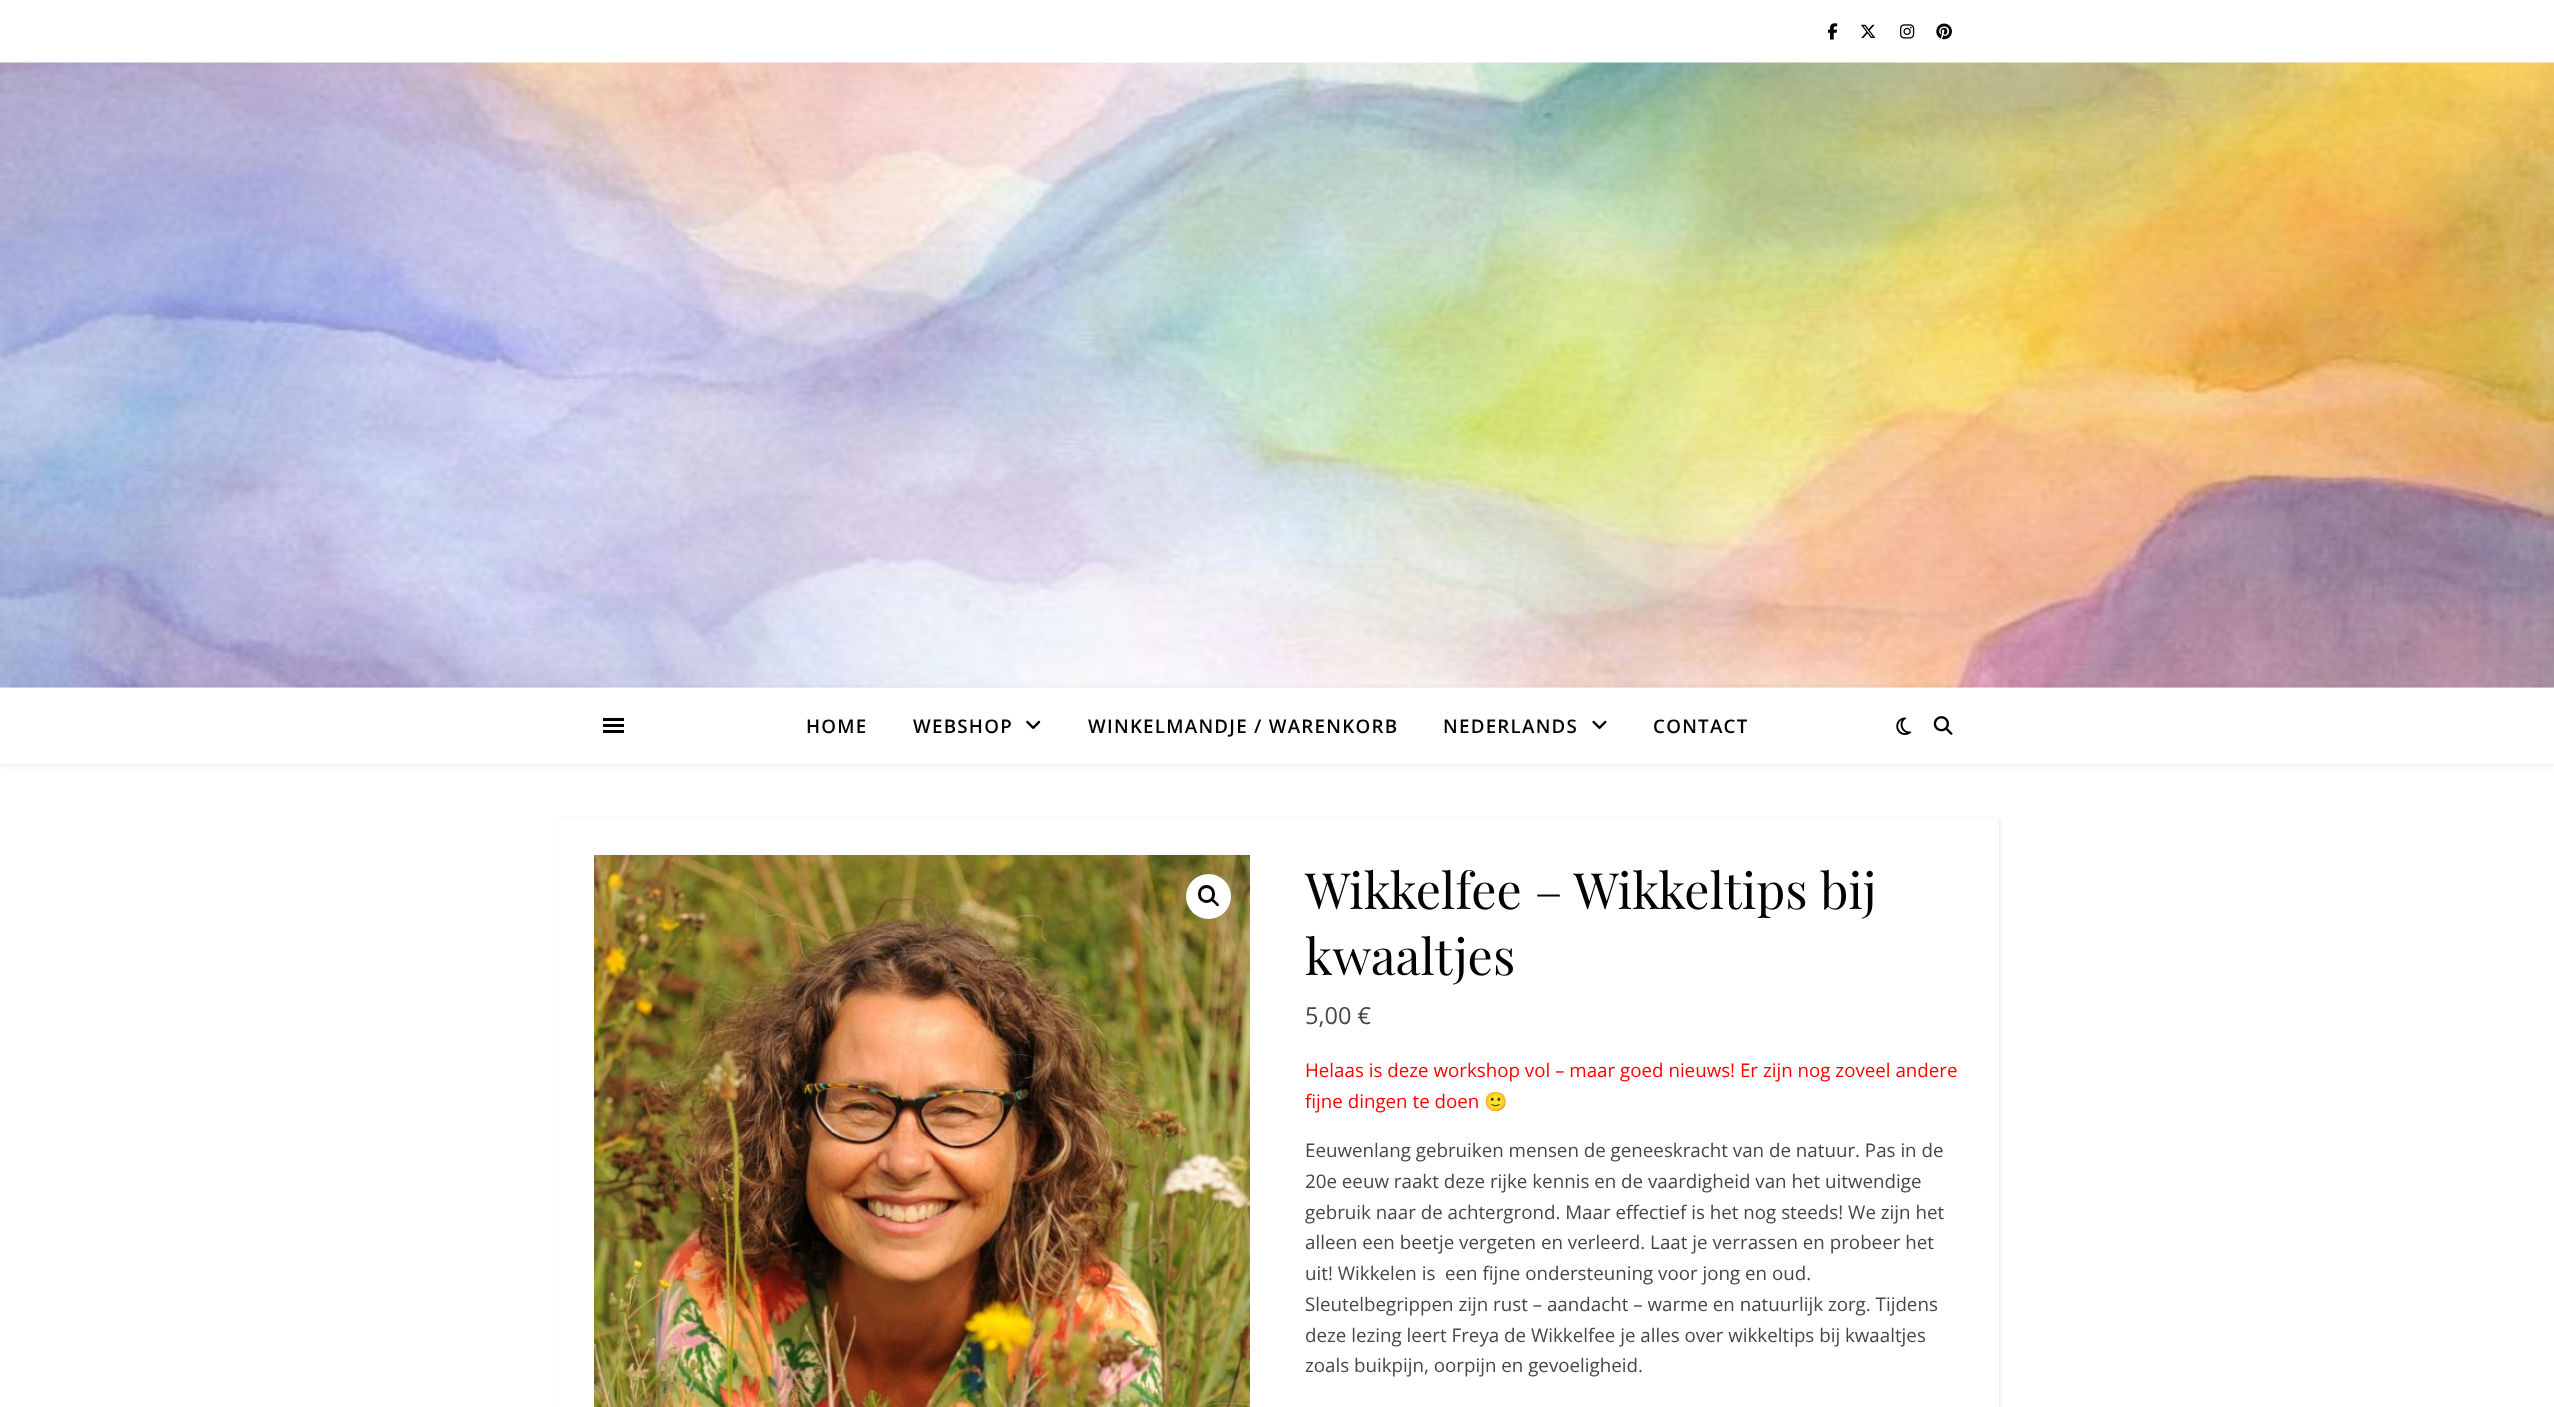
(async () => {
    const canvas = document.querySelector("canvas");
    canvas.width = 2554;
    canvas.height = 1407;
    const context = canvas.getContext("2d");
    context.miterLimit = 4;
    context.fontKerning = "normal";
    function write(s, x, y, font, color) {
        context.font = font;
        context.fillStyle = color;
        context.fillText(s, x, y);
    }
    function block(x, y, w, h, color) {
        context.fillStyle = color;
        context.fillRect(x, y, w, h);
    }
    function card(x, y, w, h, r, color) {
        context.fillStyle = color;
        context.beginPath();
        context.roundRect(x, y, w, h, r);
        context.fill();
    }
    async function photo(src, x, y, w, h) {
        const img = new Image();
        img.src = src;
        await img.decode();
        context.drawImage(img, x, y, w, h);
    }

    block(0, 0, 2554, 1407, "rgb(255, 255, 255)");
    await photo("media/1.png", 1827, 23, 11, 17);
    await photo("media/2.png", 1861, 24, 15, 14);
    await photo("media/3.png", 1900, 24, 15, 15);
    await photo("media/4.png", 1936, 23, 16, 17);
    await photo("media/5.png", 0, 62, 2554, 626);
    context.fillStyle = "rgba(0, 0, 0, 0.1)";
    context.filter = "blur(3px)";
    context.beginPath();
    context.rect(0, 689, 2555, 76);
    context.fill();
    context.filter = "none";
    block(0, 688, 2554, 76, "rgb(255, 255, 255)");
    block(603, 718, 21, 3, "rgb(0, 0, 0)");
    block(603, 724, 21, 3, "rgb(0, 0, 0)");
    block(603, 730, 21, 3, "rgb(0, 0, 0)");
    context.letterSpacing = "1.25px";
    write("HOME", 806, 733, "600 18.75px Open Sans", "rgb(3, 3, 3)");
    write("WEBSHOP", 913, 733, "600 18.75px Open Sans", "rgb(3, 3, 3)");
    await photo("media/6.png", 1026, 720, 15, 9);
    write("WINKELMANDJE / WARENKORB", 1088, 733, "600 18.75px Open Sans", "rgb(3, 3, 3)");
    write("NEDERLANDS", 1443, 733, "600 18.75px Open Sans", "rgb(3, 3, 3)");
    await photo("media/7.png", 1592, 720, 15, 9);
    write("CONTACT", 1653, 733, "600 18.75px Open Sans", "rgb(3, 3, 3)");
    await photo("media/8.png", 1896, 717, 16, 18);
    await photo("media/9.png", 1933, 716, 20, 19);
    context.fillStyle = "rgba(0, 0, 0, 0.1)";
    context.filter = "blur(2px)";
    context.beginPath();
    context.roundRect(558, 819, 1442, 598, 4);
    context.fill();
    context.filter = "none";
    card(556, 818, 1443, 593, 4, "rgb(255, 255, 255)");
    await photo("media/10.png", 594, 855, 656, 552);
    context.beginPath();
    context.arc(1208.5, 896.5, 22.5, 0, Math.PI * 2);
    context.fill();
    context.beginPath();
    context.roundRect(1199.5, 886.5, 14, 15, 7);
    context.strokeStyle = "rgb(0, 0, 0)";
    context.lineWidth = 3;
    context.stroke();
    context.fillStyle = "rgb(0, 0, 0)";
    context.beginPath();
    context.moveTo(1211.5, 899);
    context.bezierCurveTo(1213, 897.5, 1215.5, 901, 1216, 901.5);
    context.bezierCurveTo(1217, 902.5, 1220, 904.5, 1218.5, 906);
    context.bezierCurveTo(1217.5, 907.5, 1215, 904, 1214.5, 903.5);
    context.bezierCurveTo(1213.5, 902.5, 1210, 900.5, 1211.5, 899);
    context.closePath();
    context.fill();
    context.letterSpacing = "0px";
    write("Wikkelfee – Wikkeltips bij", 1305, 909, "50px Playfair Display", "rgb(3, 3, 3)");
    write("kwaaltjes", 1305, 975, "50px Playfair Display", "rgb(3, 3, 3)");
    write("5,00 €", 1305, 1024, "23.5px Open Sans", "rgb(70, 70, 70)");
    write("Helaas is deze workshop vol – maar goed nieuws! Er zijn nog zoveel andere", 1305, 1077, "18.75px Open Sans", "rgb(255, 0, 0)");
    write("fijne dingen te doen", 1305, 1108, "18.75px Open Sans", "rgb(255, 0, 0)");
    write("🙂", 1484, 1108, "18.75px Noto Color Emoji", "rgb(255, 0, 0)");
    write("Eeuwenlang gebruiken mensen de geneeskracht van de natuur. Pas in de", 1305, 1157, "18.75px Open Sans", "rgb(70, 70, 70)");
    write("20e eeuw raakt deze rijke kennis en de vaardigheid van het uitwendige", 1305, 1188, "18.75px Open Sans", "rgb(70, 70, 70)");
    write("gebruik naar de achtergrond. Maar effectief is het nog steeds! We zijn het", 1305, 1219, "18.75px Open Sans", "rgb(70, 70, 70)");
    write("alleen een beetje vergeten en verleerd. Laat je verrassen en probeer het", 1305, 1249, "18.75px Open Sans", "rgb(70, 70, 70)");
    write("uit! Wikkelen is  een fijne ondersteuning voor jong en oud.", 1305, 1280, "18.75px Open Sans", "rgb(70, 70, 70)");
    write("Sleutelbegrippen zijn rust – aandacht – warme en natuurlijk zorg. Tijdens", 1305, 1311, "18.75px Open Sans", "rgb(70, 70, 70)");
    write("deze lezing leert Freya de Wikkelfee je alles over wikkeltips bij kwaaltjes", 1305, 1342, "18.75px Open Sans", "rgb(70, 70, 70)");
    write("zoals buikpijn, oorpijn en gevoeligheid.", 1305, 1372, "18.75px Open Sans", "rgb(70, 70, 70)");
})();
